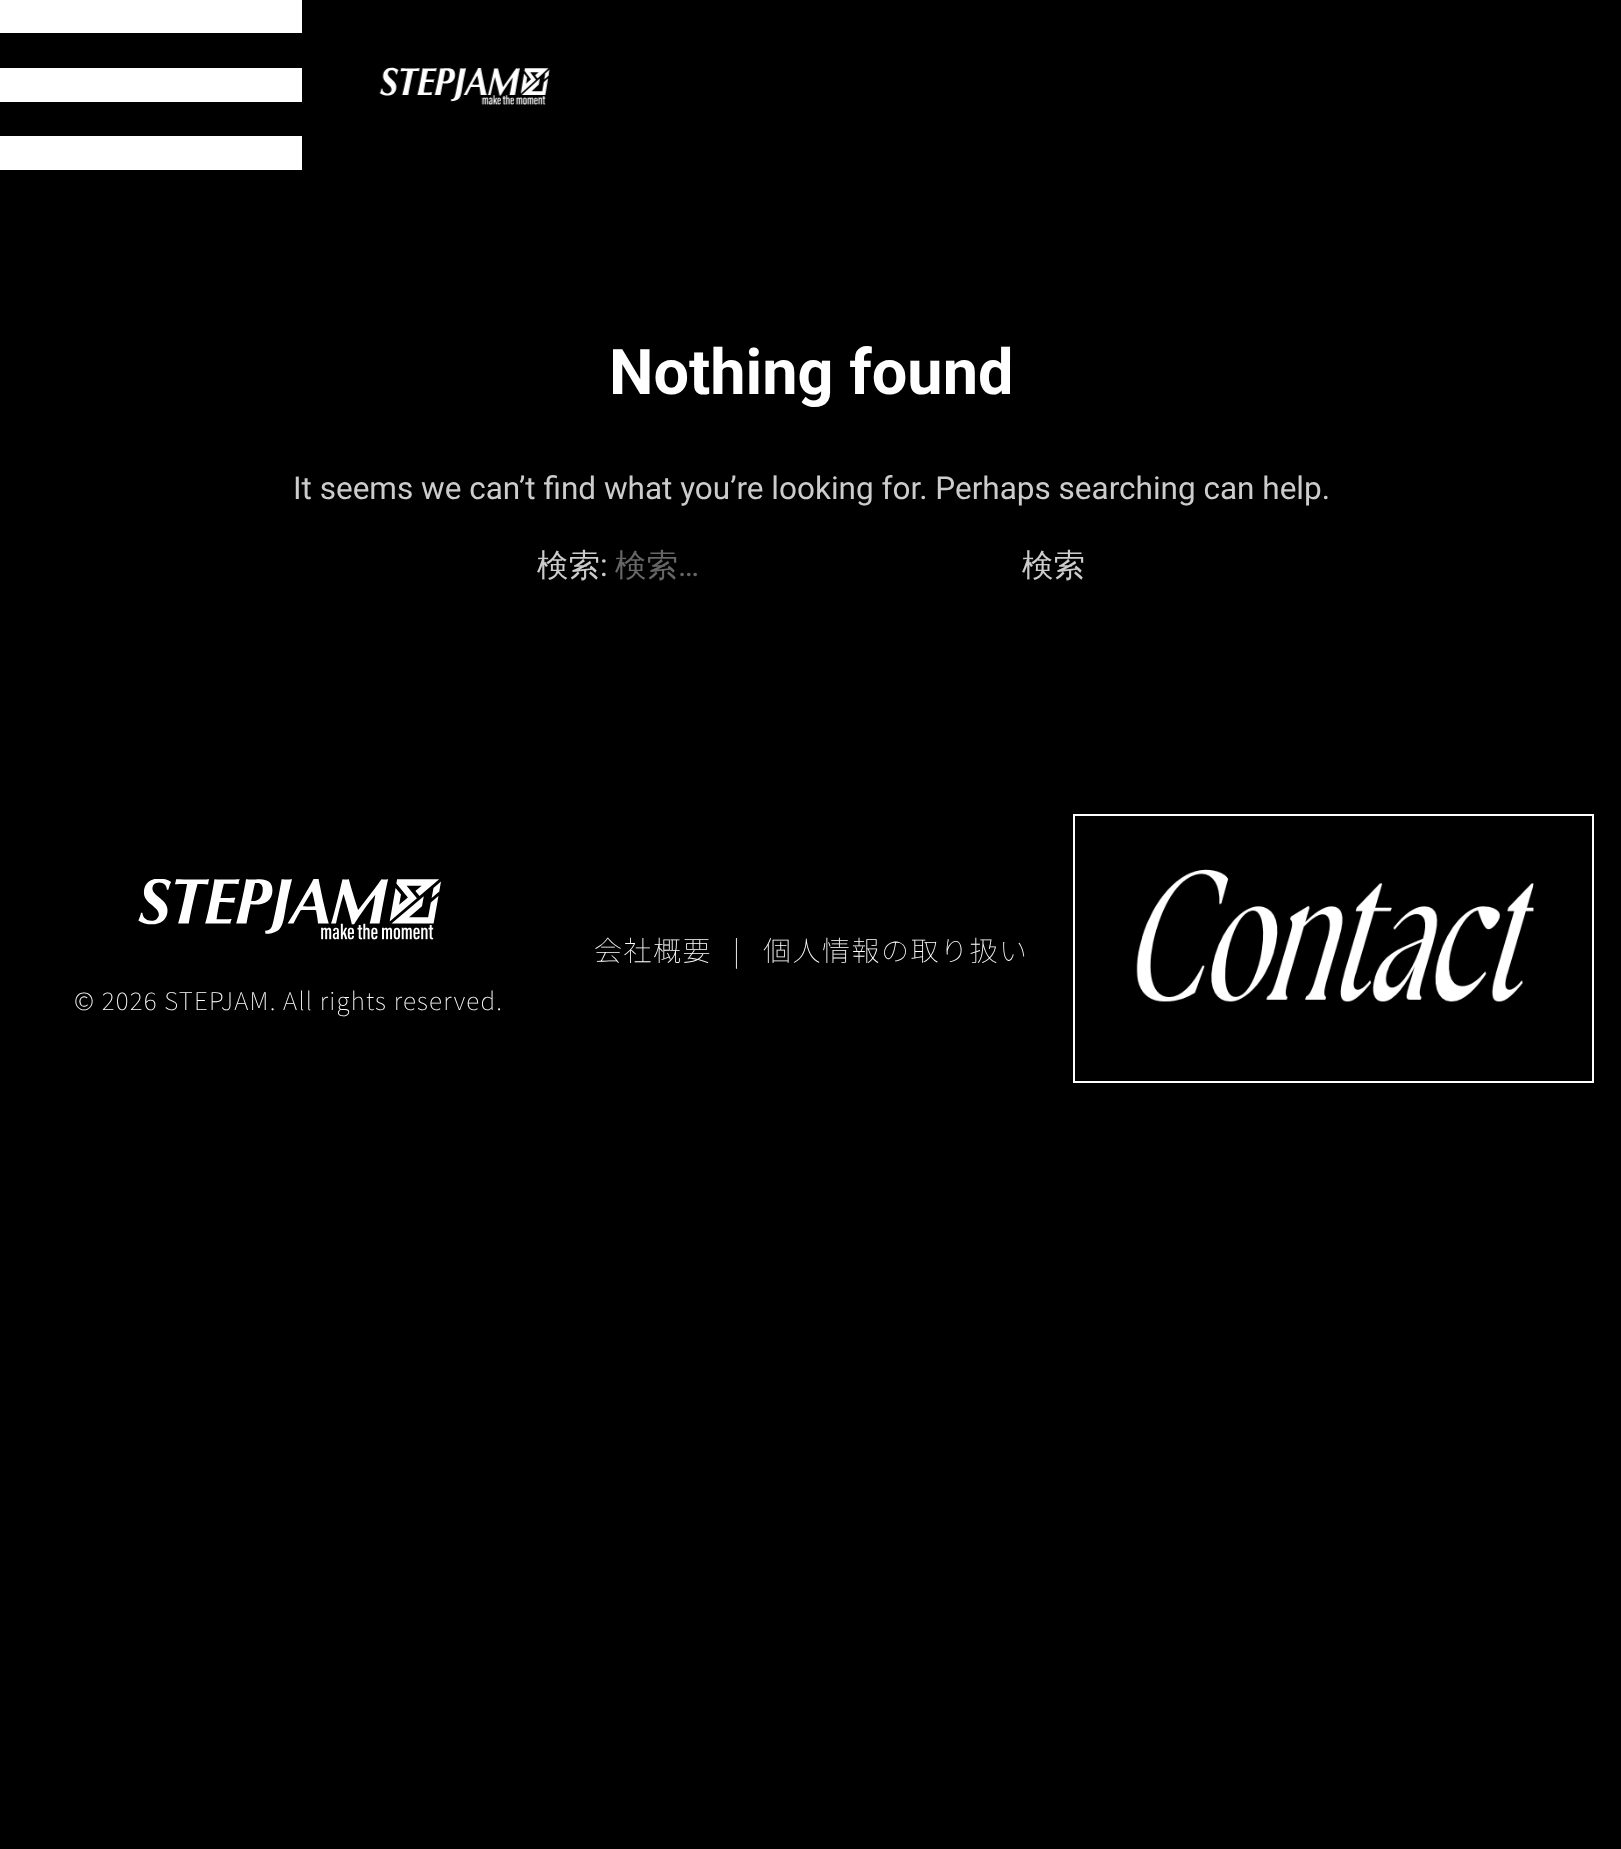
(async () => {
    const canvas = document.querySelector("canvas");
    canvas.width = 1621;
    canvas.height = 1849;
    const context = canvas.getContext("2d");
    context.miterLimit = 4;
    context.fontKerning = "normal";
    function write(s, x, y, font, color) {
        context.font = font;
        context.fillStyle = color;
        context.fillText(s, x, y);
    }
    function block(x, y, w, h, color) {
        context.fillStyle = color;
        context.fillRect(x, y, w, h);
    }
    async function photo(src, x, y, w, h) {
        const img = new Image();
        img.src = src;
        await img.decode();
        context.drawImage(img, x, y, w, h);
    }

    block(0, 0, 1621, 1849, "rgb(0, 0, 0)");
    block(0, 0, 302, 33, "rgb(255, 255, 255)");
    block(0, 68, 302, 34, "rgb(255, 255, 255)");
    block(0, 136, 302, 34, "rgb(255, 255, 255)");
    await photo("media/1.png", 379, 67, 171, 38);
    write("Nothing found", 609, 394, "bold 63px Roboto", "rgb(255, 255, 255)");
    write("It seems we can’t find what you’re looking for. Perhaps searching can help.", 293, 499, "31.5px Roboto", "rgb(204, 204, 204)");
    write("検索", 537, 576, "500 31.5px WenQuanYi Zen Hei", "rgb(204, 204, 204)");
    write(":", 600, 576, "31.5px Roboto", "rgb(204, 204, 204)");
    write("検索", 615, 576, "500 31.5px WenQuanYi Zen Hei", "rgb(102, 102, 102)");
    write("…", 678, 576, "31.5px Roboto", "rgb(102, 102, 102)");
    write("検索", 1022, 576, "500 31.5px WenQuanYi Zen Hei", "rgb(204, 204, 204)");
    context.letterSpacing = "1.5px";
    write("会社概要", 594, 961, "100 28px Noto Sans JP", "rgb(255, 255, 255)");
    write("|", 733, 961, "100 28px Noto Sans JP", "rgb(255, 255, 255)");
    write("個人情報の取り扱い", 763, 961, "100 28px Noto Sans JP", "rgb(255, 255, 255)");
    context.strokeStyle = "rgb(255, 255, 255)";
    context.lineWidth = 2;
    context.strokeRect(1074, 815, 519, 267);
    await photo("media/2.png", 1136, 869, 398, 133);
    await photo("media/3.png", 138, 879, 303, 61);
    context.letterSpacing = "1.2px";
    write("© 2026 STEPJAM. All rights reserved.", 74, 1010, "100 24.5px Noto Sans JP", "rgb(255, 255, 255)");
})();
